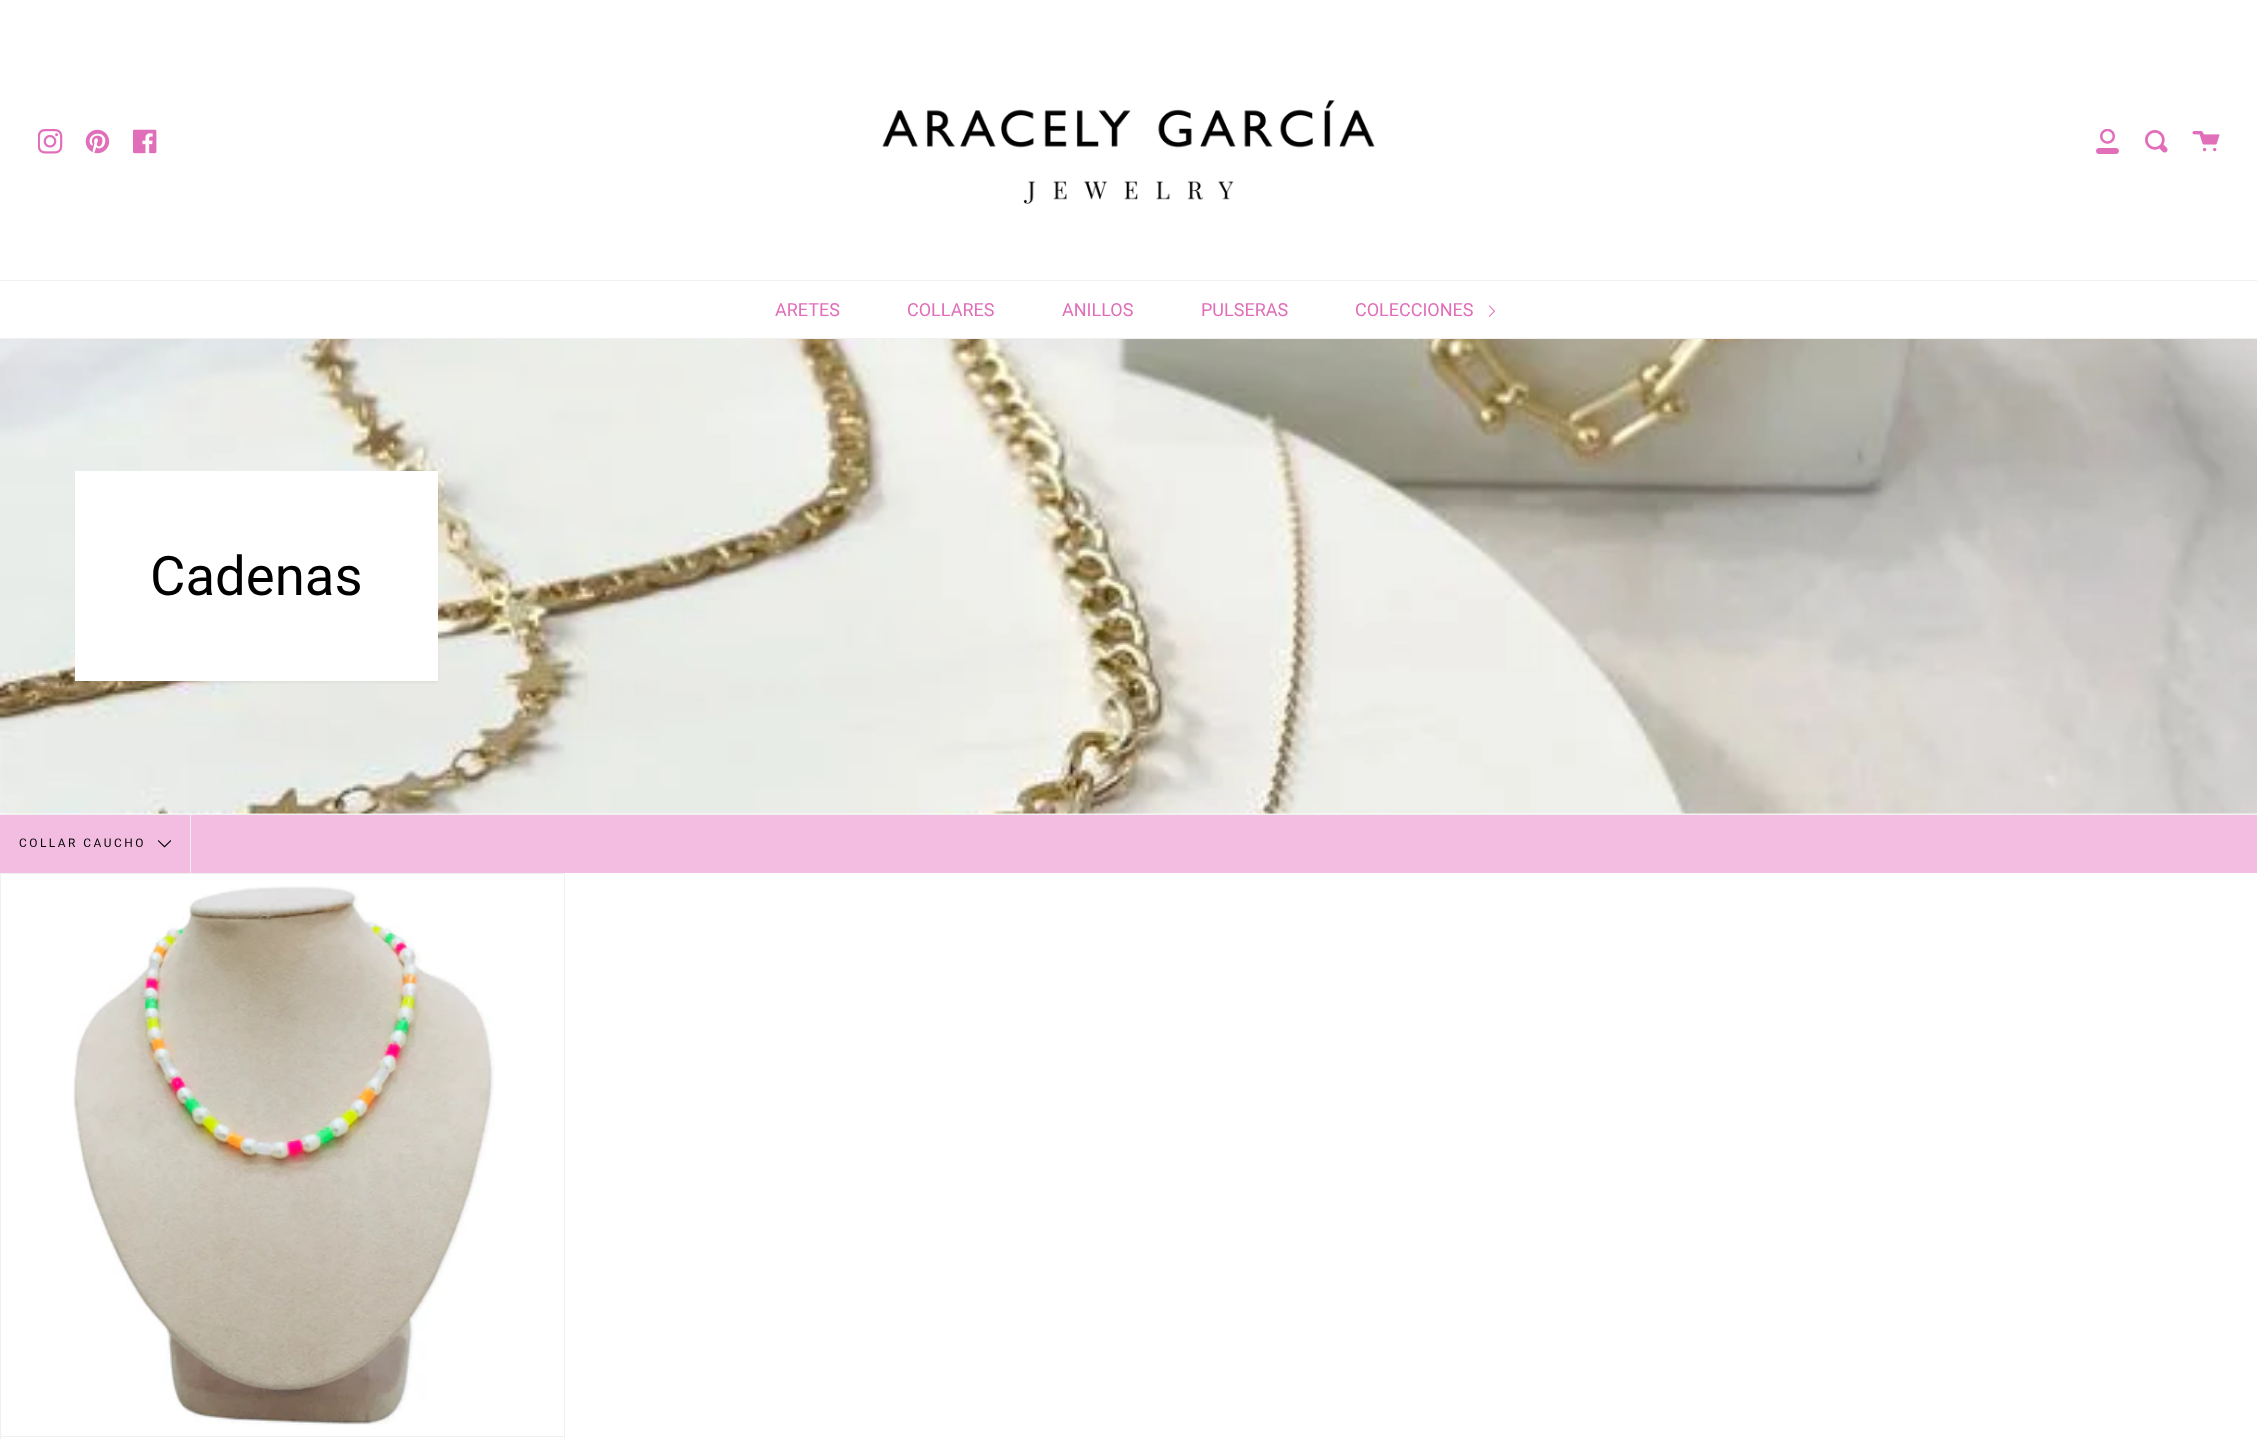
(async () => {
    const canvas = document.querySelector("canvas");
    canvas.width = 2257;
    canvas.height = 1439;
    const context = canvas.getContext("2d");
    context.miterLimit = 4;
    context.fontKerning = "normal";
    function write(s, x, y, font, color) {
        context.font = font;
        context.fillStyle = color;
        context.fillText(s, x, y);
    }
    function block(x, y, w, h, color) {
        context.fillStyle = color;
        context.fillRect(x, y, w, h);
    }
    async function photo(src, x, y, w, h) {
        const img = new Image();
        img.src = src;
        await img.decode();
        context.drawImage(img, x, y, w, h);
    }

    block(0, 0, 2257, 1439, "rgb(255, 255, 255)");
    await photo("media/1.png", 38, 129, 25, 25);
    await photo("media/2.png", 85, 129, 25, 25);
    await photo("media/3.png", 133, 129, 24, 25);
    await photo("media/4.png", 882, 100, 493, 104);
    await photo("media/5.png", 2096, 129, 23, 25);
    await photo("media/6.png", 2145, 130, 23, 23);
    await photo("media/7.png", 2192, 131, 28, 21);
    block(0, 280, 2257, 1, "rgb(240, 240, 240)");
    block(0, 338, 2257, 1, "rgb(240, 240, 240)");
    write("ARETES", 775, 316, "18px Roboto", "rgb(224, 110, 185)");
    write("COLLARES", 907, 316, "18px Roboto", "rgb(224, 110, 185)");
    write("ANILLOS", 1062, 316, "18px Roboto", "rgb(224, 110, 185)");
    write("PULSERAS", 1201, 316, "18px Roboto", "rgb(224, 110, 185)");
    write("COLECCIONES", 1355, 316, "18px Roboto", "rgb(224, 110, 185)");
    await photo("media/8.png", 1489, 305, 6, 12);
    await photo("media/9.png", 0, 339, 2257, 475);
    context.fillStyle = "rgba(0, 0, 0, 0.04)";
    context.filter = "blur(1px)";
    context.beginPath();
    context.rect(75, 473, 363, 210);
    context.fill();
    context.filter = "none";
    block(75, 471, 363, 210, "rgb(255, 255, 255)");
    write("Cadenas", 150, 595, "54.5px Roboto", "rgb(0, 0, 0)");
    block(0, 815, 2257, 58, "rgb(243, 189, 225)");
    block(0, 814, 2257, 1, "rgb(240, 240, 240)");
    block(190, 815, 1, 58, "rgb(240, 240, 240)");
    context.letterSpacing = "2.5px";
    write("COLLAR CAUCHO", 19, 847, "11.9px Roboto", "rgb(0, 0, 0)");
    await photo("media/10.png", 158, 840, 13, 8);
    block(0, 873, 1, 566, "rgb(240, 240, 240)");
    block(1, 873, 564, 1, "rgb(240, 240, 240)");
    block(564, 873, 1, 566, "rgb(240, 240, 240)");
    block(1, 1436, 563, 1, "rgb(240, 240, 240)");
    await photo("media/11.png", 73, 886, 422, 539);
})();
